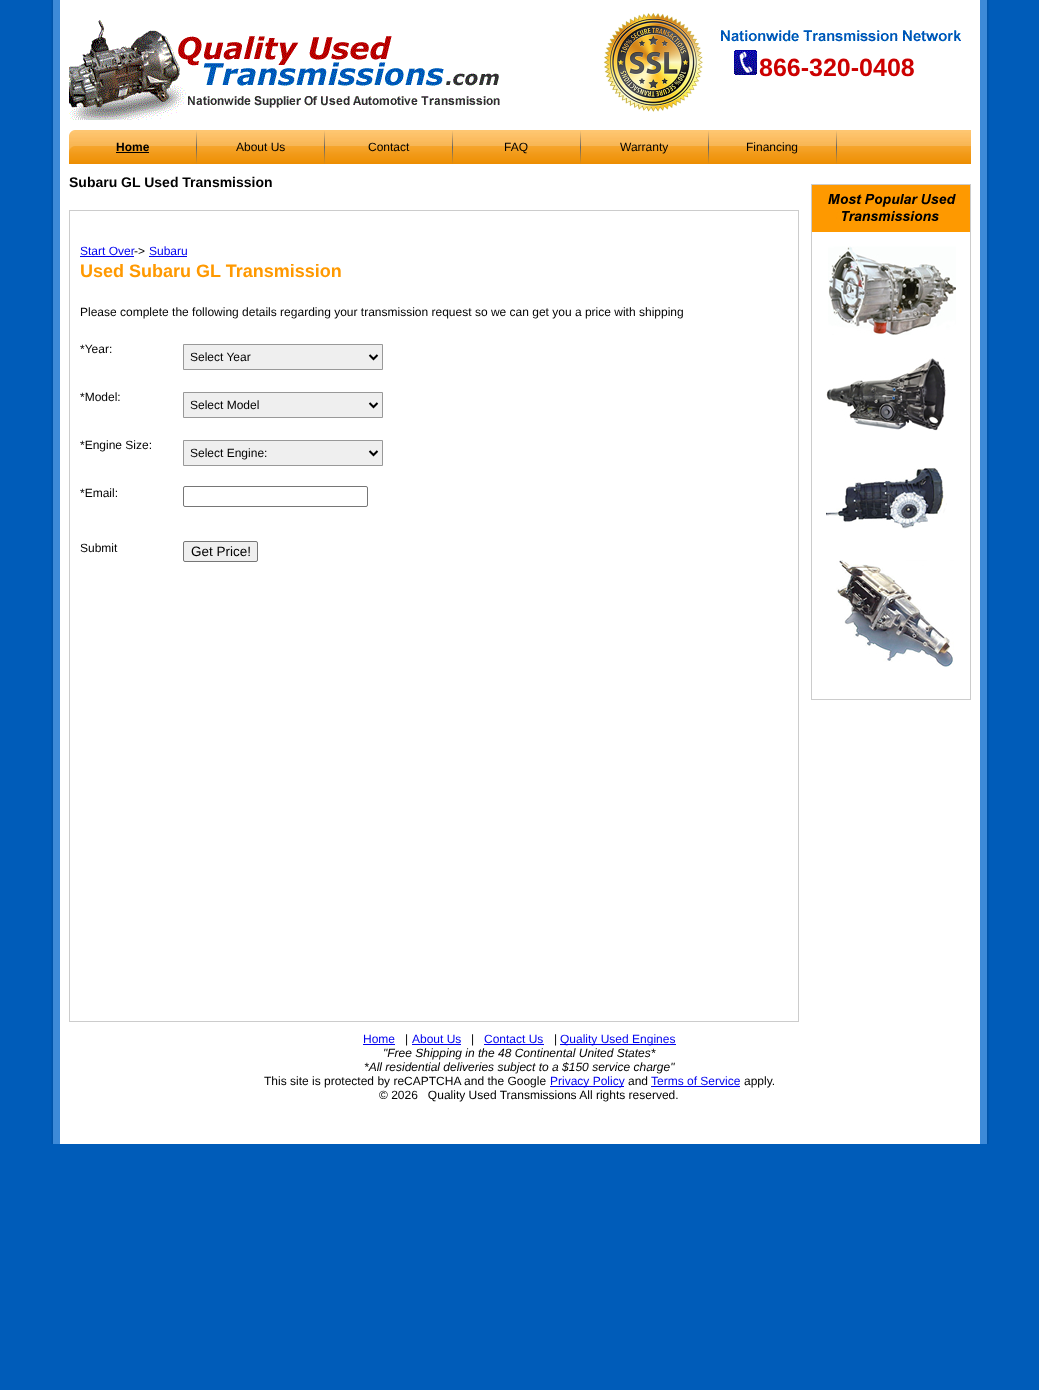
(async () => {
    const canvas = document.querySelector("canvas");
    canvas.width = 1039;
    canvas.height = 1390;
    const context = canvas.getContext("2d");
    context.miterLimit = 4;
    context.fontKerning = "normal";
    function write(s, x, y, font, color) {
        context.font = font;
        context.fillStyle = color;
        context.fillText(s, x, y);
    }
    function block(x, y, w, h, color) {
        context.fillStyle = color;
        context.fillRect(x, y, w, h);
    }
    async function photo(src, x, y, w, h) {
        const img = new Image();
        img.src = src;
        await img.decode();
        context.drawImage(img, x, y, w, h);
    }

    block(0, 0, 1039, 1390, "rgb(0, 92, 185)");
    await photo("media/1.png", 51, 0, 938, 1144);
    await photo("media/2.png", 69, 20, 431, 100);
    await photo("media/3.png", 603, 13, 100, 99);
    await photo("media/4.png", 721, 30, 240, 45);
    write("866-320-0408", 759, 76, "bold 25px Liberation Sans", "rgb(204, 0, 0)");
    await photo("media/5.png", 197, 130, 774, 34);
    await photo("media/6.png", 69, 130, 128, 34);
    write("Home", 116, 151, "bold 12px Liberation Sans", "rgb(0, 0, 0)");
    block(116, 152, 33, 1, "rgb(0, 0, 0)");
    await photo("media/7.png", 324, 131, 1, 33);
    write("About Us", 236, 151, "12px Liberation Sans", "rgb(0, 0, 0)");
    await photo("media/7.png", 452, 131, 1, 33);
    write("Contact", 368, 151, "12px Liberation Sans", "rgb(0, 0, 0)");
    await photo("media/7.png", 580, 131, 1, 33);
    write("FAQ", 504, 151, "12px Liberation Sans", "rgb(0, 0, 0)");
    await photo("media/7.png", 708, 131, 1, 33);
    write("Warranty", 620, 151, "12px Liberation Sans", "rgb(0, 0, 0)");
    await photo("media/7.png", 836, 131, 1, 33);
    write("Financing", 746, 151, "12px Liberation Sans", "rgb(0, 0, 0)");
    write("Subaru GL Used Transmission", 69, 187, "bold 14px Liberation Sans", "rgb(0, 0, 0)");
    context.strokeStyle = "rgb(204, 204, 204)";
    context.strokeRect(69.5, 210.5, 729, 811);
    write("Start Over", 80, 255, "12px Liberation Sans", "rgb(0, 0, 238)");
    block(80, 256, 54, 1, "rgb(0, 0, 238)");
    write("->", 134, 255, "12px Liberation Sans", "rgb(0, 0, 0)");
    write("Subaru", 149, 255, "12px Liberation Sans", "rgb(0, 0, 238)");
    block(149, 256, 38, 1, "rgb(0, 0, 238)");
    write("Used Subaru GL Transmission", 80, 277, "bold 18px Liberation Sans", "rgb(255, 153, 0)");
    write("Please complete the following details regarding your transmission request so we can get you a price with shipping", 80, 316, "12px Liberation Sans", "rgb(0, 0, 0)");
    write("*Year:", 80, 353, "12px Liberation Sans", "rgb(0, 0, 0)");
    context.fillStyle = "rgb(239, 239, 239)";
    context.beginPath();
    context.rect(183.5, 344.5, 199, 25);
    context.fill();
    context.strokeStyle = "rgb(153, 153, 153)";
    context.stroke();
    context.beginPath();
    context.moveTo(369.5, 355);
    context.lineTo(373.5, 359);
    context.lineTo(377.5, 355);
    context.strokeStyle = "rgb(0, 0, 0)";
    context.lineWidth = 2;
    context.stroke();
    write("Select Year", 190, 361, "12px Liberation Sans", "rgb(0, 0, 0)");
    write("*Model:", 80, 401, "12px Liberation Sans", "rgb(0, 0, 0)");
    context.fillStyle = "rgb(239, 239, 239)";
    context.beginPath();
    context.rect(183.5, 392.5, 199, 25);
    context.fill();
    context.strokeStyle = "rgb(153, 153, 153)";
    context.lineWidth = 1;
    context.stroke();
    context.beginPath();
    context.moveTo(369.5, 403);
    context.lineTo(373.5, 407);
    context.lineTo(377.5, 403);
    context.strokeStyle = "rgb(0, 0, 0)";
    context.lineWidth = 2;
    context.stroke();
    write("Select Model", 190, 409, "12px Liberation Sans", "rgb(0, 0, 0)");
    write("*Engine Size:", 80, 449, "12px Liberation Sans", "rgb(0, 0, 0)");
    context.fillStyle = "rgb(239, 239, 239)";
    context.beginPath();
    context.rect(183.5, 440.5, 199, 25);
    context.fill();
    context.strokeStyle = "rgb(153, 153, 153)";
    context.lineWidth = 1;
    context.stroke();
    context.beginPath();
    context.moveTo(369.5, 451);
    context.lineTo(373.5, 455);
    context.lineTo(377.5, 451);
    context.strokeStyle = "rgb(0, 0, 0)";
    context.lineWidth = 2;
    context.stroke();
    write("Select Engine:", 190, 457, "12px Liberation Sans", "rgb(0, 0, 0)");
    write("*Email:", 80, 497, "12px Liberation Sans", "rgb(0, 0, 0)");
    context.beginPath();
    context.roundRect(183.5, 486.5, 184, 20, 1.5);
    context.strokeStyle = "rgb(118, 118, 118)";
    context.lineWidth = 1;
    context.stroke();
    write("Submit", 80, 552, "12px Liberation Sans", "rgb(0, 0, 0)");
    context.fillStyle = "rgb(239, 239, 239)";
    context.beginPath();
    context.roundRect(183.5, 541.5, 74, 20, 1.5);
    context.fill();
    context.stroke();
    write("Get Price!", 191, 556, "13.5px Liberation Sans", "rgb(0, 0, 0)");
    context.strokeStyle = "rgb(204, 204, 204)";
    context.strokeRect(811.5, 184.5, 159, 515);
    await photo("media/8.png", 812, 185, 158, 47);
    await photo("media/9.png", 828, 246, 128, 89);
    await photo("media/10.png", 826, 358, 120, 73);
    await photo("media/11.png", 826, 467, 121, 62);
    await photo("media/12.png", 836, 560, 118, 107);
    write("Home", 363, 1043, "12px Liberation Sans", "rgb(0, 0, 238)");
    block(363, 1044, 32, 1, "rgb(0, 0, 238)");
    write("|", 405, 1043, "12px Liberation Sans", "rgb(0, 0, 0)");
    write("About Us", 412, 1043, "12px Liberation Sans", "rgb(0, 0, 238)");
    block(412, 1044, 49, 1, "rgb(0, 0, 238)");
    write("|", 471, 1043, "12px Liberation Sans", "rgb(0, 0, 0)");
    write("Contact Us", 484, 1043, "12px Liberation Sans", "rgb(0, 0, 238)");
    block(484, 1044, 60, 1, "rgb(0, 0, 238)");
    write("|", 554, 1043, "12px Liberation Sans", "rgb(0, 0, 0)");
    block(560, 1044, 116, 1, "rgb(0, 0, 238)");
    write("Quality Used Engines", 560, 1043, "12px Liberation Sans", "rgb(0, 0, 238)");
    write("\"Free Shipping in the 48 Continental United States*", 383, 1057, "italic 12px Liberation Sans", "rgb(0, 0, 0)");
    write("*All residential deliveries subject to a $150 service charge\"", 364, 1071, "italic 12px Liberation Sans", "rgb(0, 0, 0)");
    write("This site is protected by reCAPTCHA and the Google", 264, 1085, "12px Liberation Sans", "rgb(0, 0, 0)");
    block(550, 1086, 74, 1, "rgb(0, 0, 238)");
    write("Privacy Policy", 550, 1085, "12px Liberation Sans", "rgb(0, 0, 238)");
    write("and", 628, 1085, "12px Liberation Sans", "rgb(0, 0, 0)");
    write("Terms of Service", 651, 1085, "12px Liberation Sans", "rgb(0, 0, 238)");
    block(651, 1086, 89, 1, "rgb(0, 0, 238)");
    write("apply.", 744, 1085, "12px Liberation Sans", "rgb(0, 0, 0)");
    write("© 2026   Quality Used Transmissions All rights reserved.", 379, 1099, "12px Liberation Sans", "rgb(0, 0, 0)");
})();
